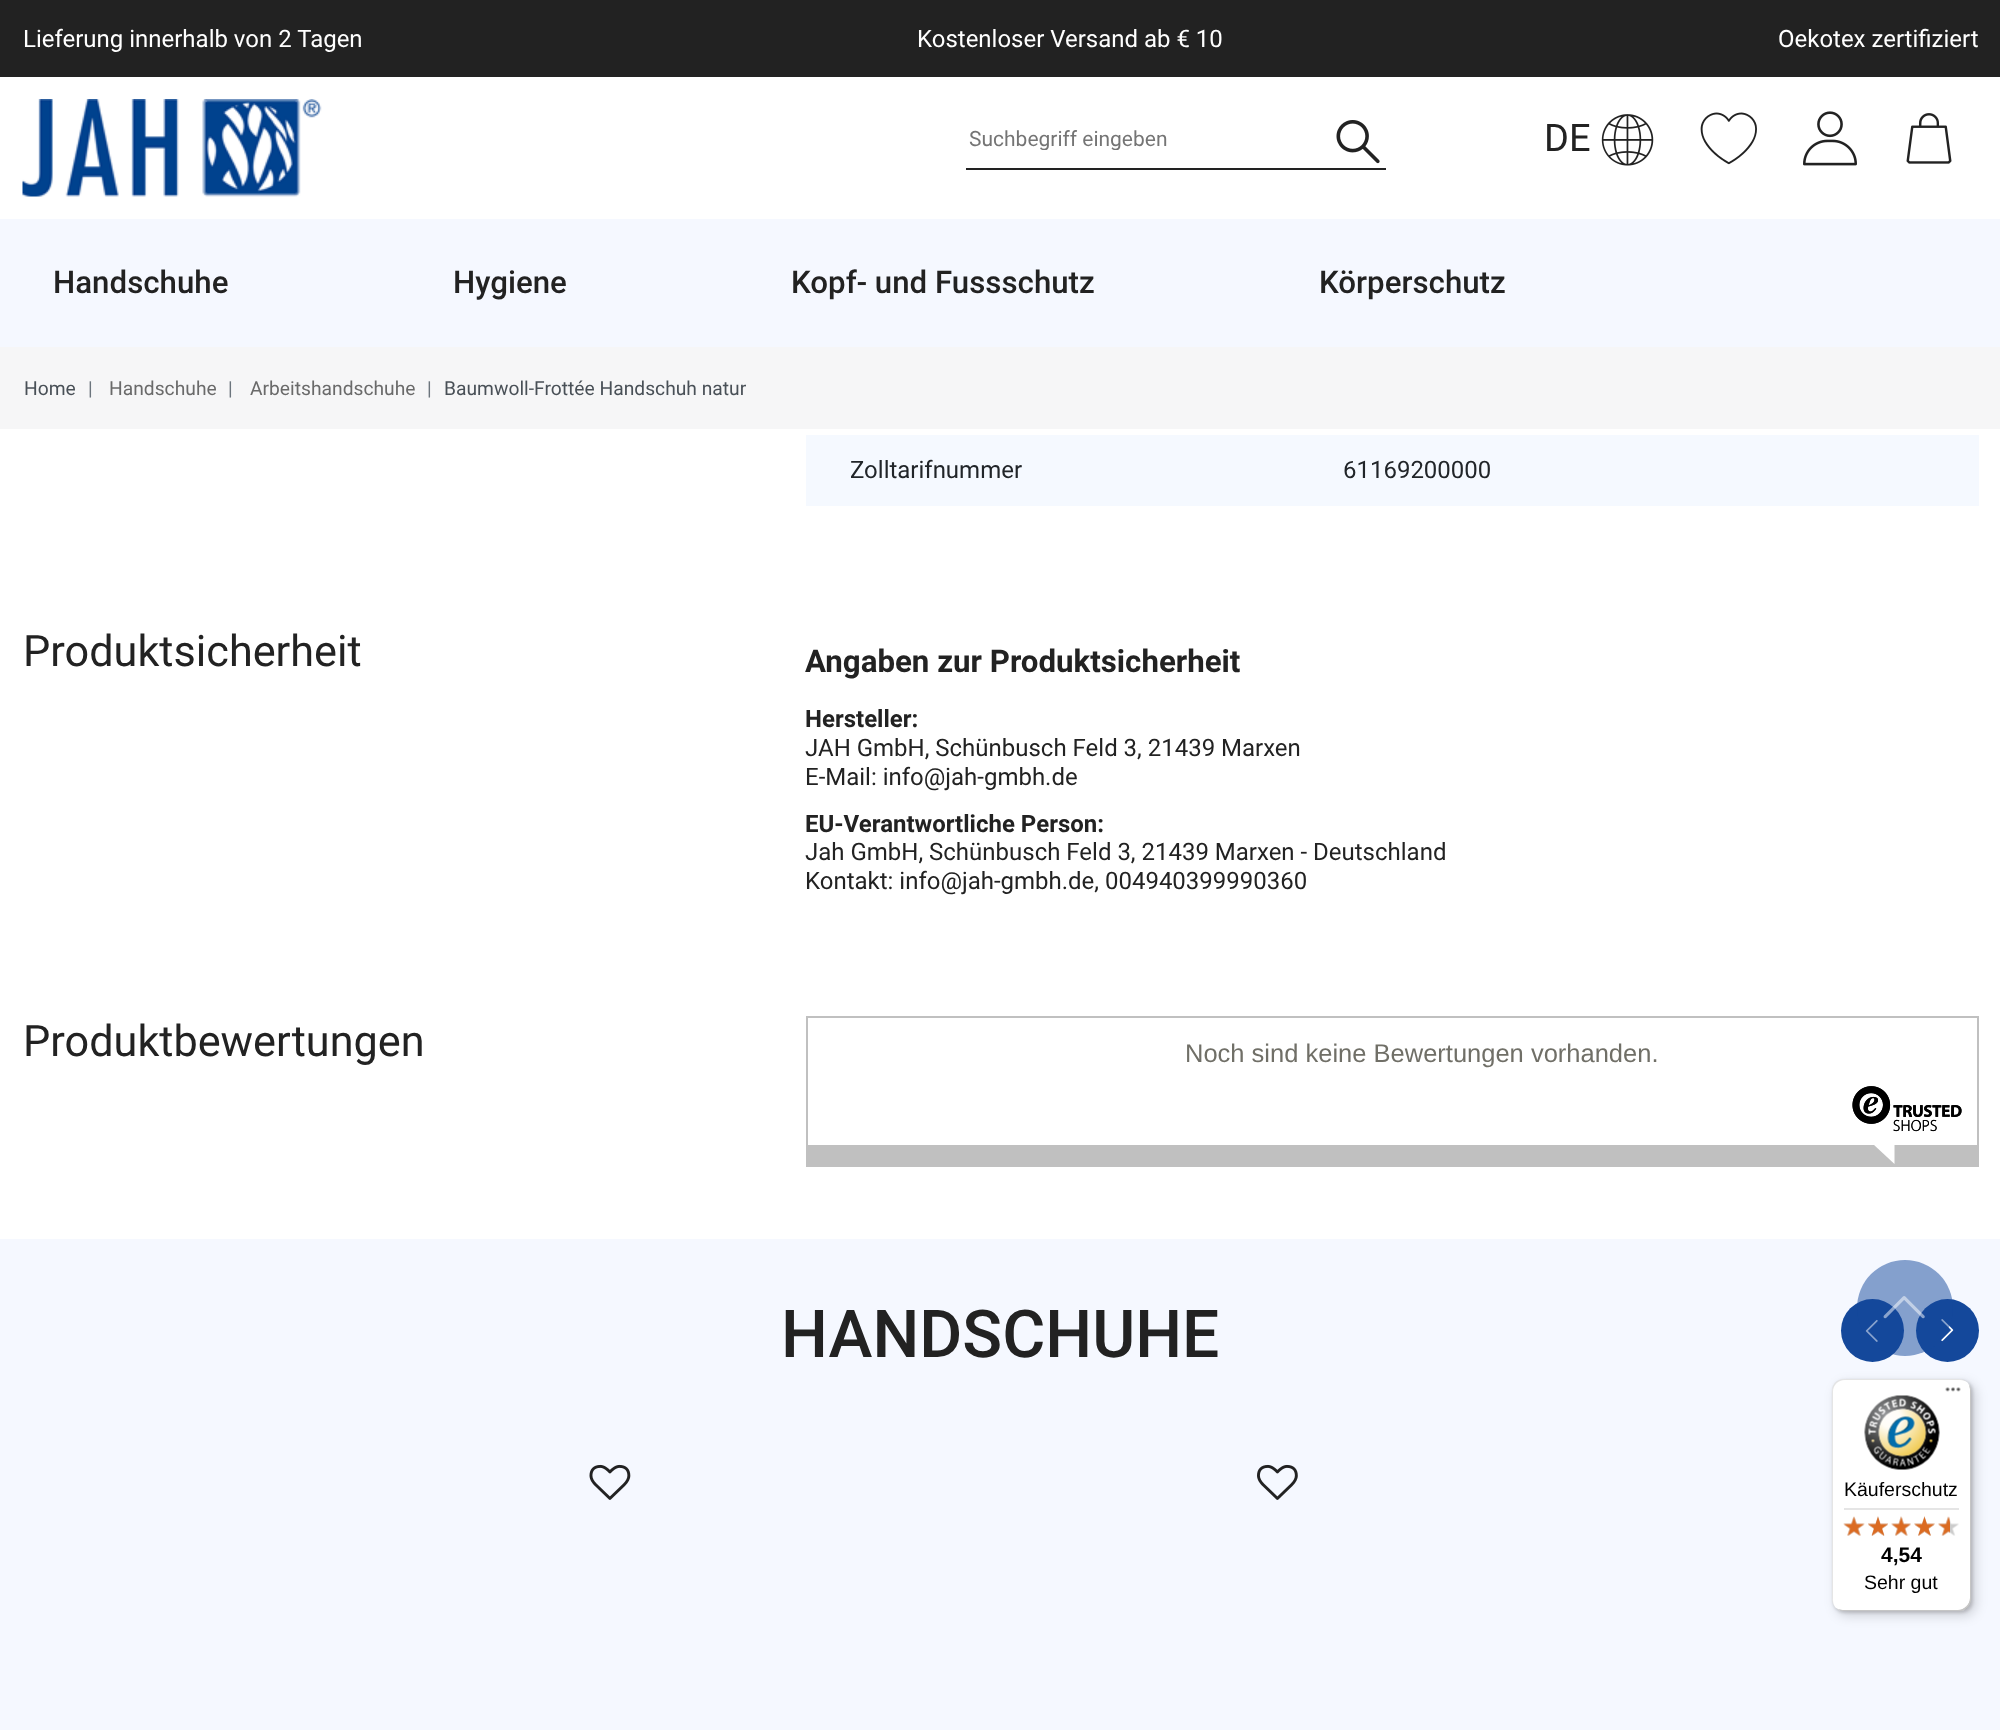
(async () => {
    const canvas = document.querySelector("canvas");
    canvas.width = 2000;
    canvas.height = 1730;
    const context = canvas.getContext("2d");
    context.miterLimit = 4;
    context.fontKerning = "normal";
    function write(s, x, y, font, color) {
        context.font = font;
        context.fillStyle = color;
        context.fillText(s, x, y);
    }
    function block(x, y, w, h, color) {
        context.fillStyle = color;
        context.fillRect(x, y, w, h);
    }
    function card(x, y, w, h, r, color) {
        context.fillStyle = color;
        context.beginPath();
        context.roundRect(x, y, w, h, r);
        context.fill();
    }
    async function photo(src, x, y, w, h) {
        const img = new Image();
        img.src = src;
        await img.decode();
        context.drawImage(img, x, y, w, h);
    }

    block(0, 0, 2000, 1730, "rgb(255, 255, 255)");
    block(0, 0, 2000, 77, "rgb(34, 34, 34)");
    write("Lieferung innerhalb von 2 Tagen", 23, 47, "24px Roboto", "rgb(255, 255, 255)");
    write("Kostenloser Versand ab € 10", 917, 47, "24px Roboto", "rgb(255, 255, 255)");
    write("Oekotex zertifiziert", 1778, 47, "24px Roboto", "rgb(255, 255, 255)");
    await photo("media/1.png", 22, 99, 300, 98);
    block(966, 168, 420, 2, "rgb(34, 34, 34)");
    context.save();
    context.beginPath();
    context.rect(969, 126, 360, 24);
    context.clip();
    write("Suchbegriff eingeben", 969, 146, "21px Roboto", "rgb(117, 117, 117)");
    context.restore();
    await photo("media/2.png", 1336, 120, 44, 44);
    write("DE", 1544, 151, "38px Roboto", "rgb(34, 34, 34)");
    await photo("media/3.png", 1601, 114, 53, 52);
    await photo("media/4.png", 1700, 112, 57, 53);
    await photo("media/5.png", 1803, 111, 54, 55);
    await photo("media/6.png", 1906, 113, 46, 51);
    block(0, 219, 2000, 128, "rgb(245, 248, 255)");
    write("Handschuhe", 53, 293, "500 31.25px Roboto", "rgb(34, 34, 34)");
    write("Hygiene", 453, 293, "500 31.25px Roboto", "rgb(34, 34, 34)");
    write("Kopf- und Fussschutz", 791, 293, "500 31.25px Roboto", "rgb(34, 34, 34)");
    write("Körperschutz", 1319, 293, "500 31.25px Roboto", "rgb(34, 34, 34)");
    block(0, 347, 2000, 82, "rgb(246, 246, 247)");
    write("Home", 24, 395, "19.25px Roboto", "rgb(73, 80, 87)");
    write("|", 88, 395, "19.25px Roboto", "rgb(108, 117, 125)");
    write("Handschuhe", 109, 395, "19.25px Roboto", "rgb(106, 106, 106)");
    write("|", 228, 395, "19.25px Roboto", "rgb(108, 117, 125)");
    write("Arbeitshandschuhe", 250, 395, "19.25px Roboto", "rgb(106, 106, 106)");
    write("|", 427, 395, "19.25px Roboto", "rgb(108, 117, 125)");
    write("Baumwoll-Frottée Handschuh natur", 444, 395, "19.25px Roboto", "rgb(73, 80, 87)");
    block(806, 435, 1173, 71, "rgb(245, 249, 255)");
    write("Zolltarifnummer", 850, 478, "24px Roboto", "rgb(33, 37, 41)");
    write("61169200000", 1343, 478, "24px Roboto", "rgb(33, 37, 41)");
    write("Produktsicherheit", 23, 666, "43.25px Roboto", "rgb(34, 34, 34)");
    write("Angaben zur Produktsicherheit", 805, 672, "bold 31.25px Roboto", "rgb(34, 34, 34)");
    write("Hersteller:", 805, 727, "bold 24px Roboto", "rgb(34, 34, 34)");
    write("JAH GmbH, Schünbusch Feld 3, 21439 Marxen", 805, 756, "24px Roboto", "rgb(34, 34, 34)");
    write("E-Mail: info@jah-gmbh.de", 805, 785, "24px Roboto", "rgb(34, 34, 34)");
    write("EU-Verantwortliche Person:", 805, 832, "bold 24px Roboto", "rgb(34, 34, 34)");
    write("Jah GmbH, Schünbusch Feld 3, 21439 Marxen - Deutschland", 805, 860, "24px Roboto", "rgb(34, 34, 34)");
    write("Kontakt: info@jah-gmbh.de, 004940399990360", 805, 889, "24px Roboto", "rgb(34, 34, 34)");
    write("Produktbewertungen", 23, 1056, "43.25px Roboto", "rgb(34, 34, 34)");
    block(806, 1016, 1173, 2, "rgb(192, 192, 192)");
    block(1977, 1016, 2, 151, "rgb(192, 192, 192)");
    block(806, 1016, 2, 151, "rgb(192, 192, 192)");
    write("Noch sind keine Bewertungen vorhanden.", 1185, 1062, "25.5px Liberation Sans", "rgb(112, 111, 103)");
    await photo("media/7.png", 1852, 1086, 110, 46);
    await photo("media/8.png", 1852, 1086, 110, 46);
    block(808, 1145, 1169, 22, "rgb(192, 192, 192)");
    context.fillStyle = "rgb(255, 255, 255)";
    context.beginPath();
    context.moveTo(1894.5, 1144.5);
    context.lineTo(1894.5, 1164);
    context.lineTo(1873.5, 1144.5);
    context.closePath();
    context.fill();
    block(0, 1239, 2000, 491, "rgb(245, 248, 255)");
    context.fillStyle = "rgb(20, 72, 155)";
    context.beginPath();
    context.arc(1872.5, 1330.5, 31.5, 0, Math.PI * 2);
    context.fill();
    await photo("media/9.png", 1865, 1319, 13, 23);
    context.beginPath();
    context.arc(1947.5, 1330.5, 31.5, 0, Math.PI * 2);
    context.fill();
    await photo("media/10.png", 1941, 1319, 13, 23);
    await photo("media/11.png", 589, 1464, 42, 36);
    await photo("media/12.png", 1257, 1464, 41, 36);
    write("HANDSCHUHE", 781, 1357, "500 66px Roboto", "rgb(34, 34, 34)");
    context.fillStyle = "rgba(20, 72, 155, 0.5)";
    context.beginPath();
    context.arc(1905, 1308, 48, 0, Math.PI * 2);
    context.fill();
    await photo("media/13.png", 1883, 1296, 42, 23);
    context.fillStyle = "rgba(0, 0, 0, 0.15)";
    context.filter = "blur(6px)";
    context.beginPath();
    context.roundRect(1836, 1383, 140, 233, 12);
    context.fill();
    context.filter = "none";
    context.filter = "blur(1.5px)";
    context.beginPath();
    context.roundRect(1833, 1380, 140, 233, 12);
    context.fill();
    context.filter = "none";
    card(1832, 1379, 139, 232, 12, "rgb(255, 255, 255)");
    context.fillStyle = "rgba(0, 0, 0, 0.1)";
    context.beginPath();
    context.moveTo(1845, 1380);
    context.lineTo(1960, 1380);
    context.bezierCurveTo(1963, 1380, 1965, 1381, 1967, 1382);
    context.bezierCurveTo(1965, 1380, 1962, 1379, 1959, 1379);
    context.lineTo(1844, 1379);
    context.bezierCurveTo(1837, 1379, 1832, 1384, 1832, 1391);
    context.lineTo(1832, 1599);
    context.bezierCurveTo(1832, 1602, 1833, 1605, 1835, 1607);
    context.bezierCurveTo(1834, 1605, 1833, 1603, 1833, 1600);
    context.lineTo(1833, 1392);
    context.bezierCurveTo(1833, 1385, 1838, 1380, 1845, 1380);
    context.closePath();
    context.fill();
    context.fillStyle = "rgba(0, 0, 0, 0.2)";
    context.beginPath();
    context.moveTo(1838, 1609);
    context.bezierCurveTo(1839, 1610, 1842, 1611, 1844, 1611);
    context.lineTo(1959, 1611);
    context.bezierCurveTo(1966, 1611, 1971, 1606, 1971, 1599);
    context.lineTo(1971, 1391);
    context.bezierCurveTo(1971, 1389, 1970, 1386, 1969, 1385);
    context.lineTo(1970, 1389);
    context.lineTo(1970, 1598);
    context.bezierCurveTo(1970, 1604, 1964, 1610, 1958, 1610);
    context.lineTo(1842, 1610);
    context.closePath();
    context.fill();
    context.fillStyle = "rgba(50, 50, 50, 0.2)";
    context.beginPath();
    context.moveTo(1836, 1608);
    context.bezierCurveTo(1838, 1610, 1841, 1611, 1844, 1611);
    context.lineTo(1959, 1611);
    context.bezierCurveTo(1966, 1611, 1971, 1606, 1971, 1599);
    context.lineTo(1971, 1391);
    context.bezierCurveTo(1971, 1388, 1970, 1385, 1968, 1383);
    context.bezierCurveTo(1969, 1385, 1970, 1387, 1970, 1390);
    context.lineTo(1970, 1598);
    context.bezierCurveTo(1970, 1605, 1965, 1610, 1958, 1610);
    context.lineTo(1843, 1610);
    context.bezierCurveTo(1840, 1610, 1838, 1609, 1836, 1608);
    context.closePath();
    context.fill();
    context.fillStyle = "rgba(255, 255, 255, 0.3)";
    context.beginPath();
    context.moveTo(1836, 1608);
    context.bezierCurveTo(1838, 1610, 1841, 1611, 1844, 1611);
    context.lineTo(1959, 1611);
    context.bezierCurveTo(1966, 1611, 1971, 1606, 1971, 1599);
    context.lineTo(1971, 1391);
    context.bezierCurveTo(1971, 1388, 1970, 1385, 1968, 1383);
    context.bezierCurveTo(1969, 1385, 1970, 1387, 1970, 1390);
    context.lineTo(1970, 1598);
    context.bezierCurveTo(1970, 1605, 1965, 1610, 1958, 1610);
    context.lineTo(1843, 1610);
    context.bezierCurveTo(1840, 1610, 1838, 1609, 1836, 1608);
    context.closePath();
    context.fill();
    await photo("media/14.png", 1945, 1387, 16, 5);
    await photo("media/15.png", 1864, 1395, 76, 75);
    write("Käuferschutz", 1844, 1496, "19.5px Liberation Sans", "rgb(0, 0, 0)");
    block(1844, 1508, 115, 2, "rgb(229, 229, 229)");
    await photo("media/21.png", 1844, 1517, 20, 19);
    await photo("media/16.png", 1843, 1516, 22, 20);
    await photo("media/22.png", 1868, 1516, 20, 20);
    await photo("media/17.png", 1868, 1516, 20, 20);
    await photo("media/23.png", 1891, 1516, 20, 20);
    await photo("media/18.png", 1891, 1516, 20, 20);
    await photo("media/24.png", 1914, 1516, 21, 20);
    await photo("media/19.png", 1914, 1516, 21, 20);
    await photo("media/25.png", 1938, 1517, 21, 19);
    await photo("media/20.png", 1938, 1516, 12, 20);
    write("4,54", 1881, 1562, "bold 21px Liberation Sans", "rgb(0, 0, 0)");
    write("Sehr gut", 1864, 1589, "19.5px Liberation Sans", "rgb(0, 0, 0)");
})();
